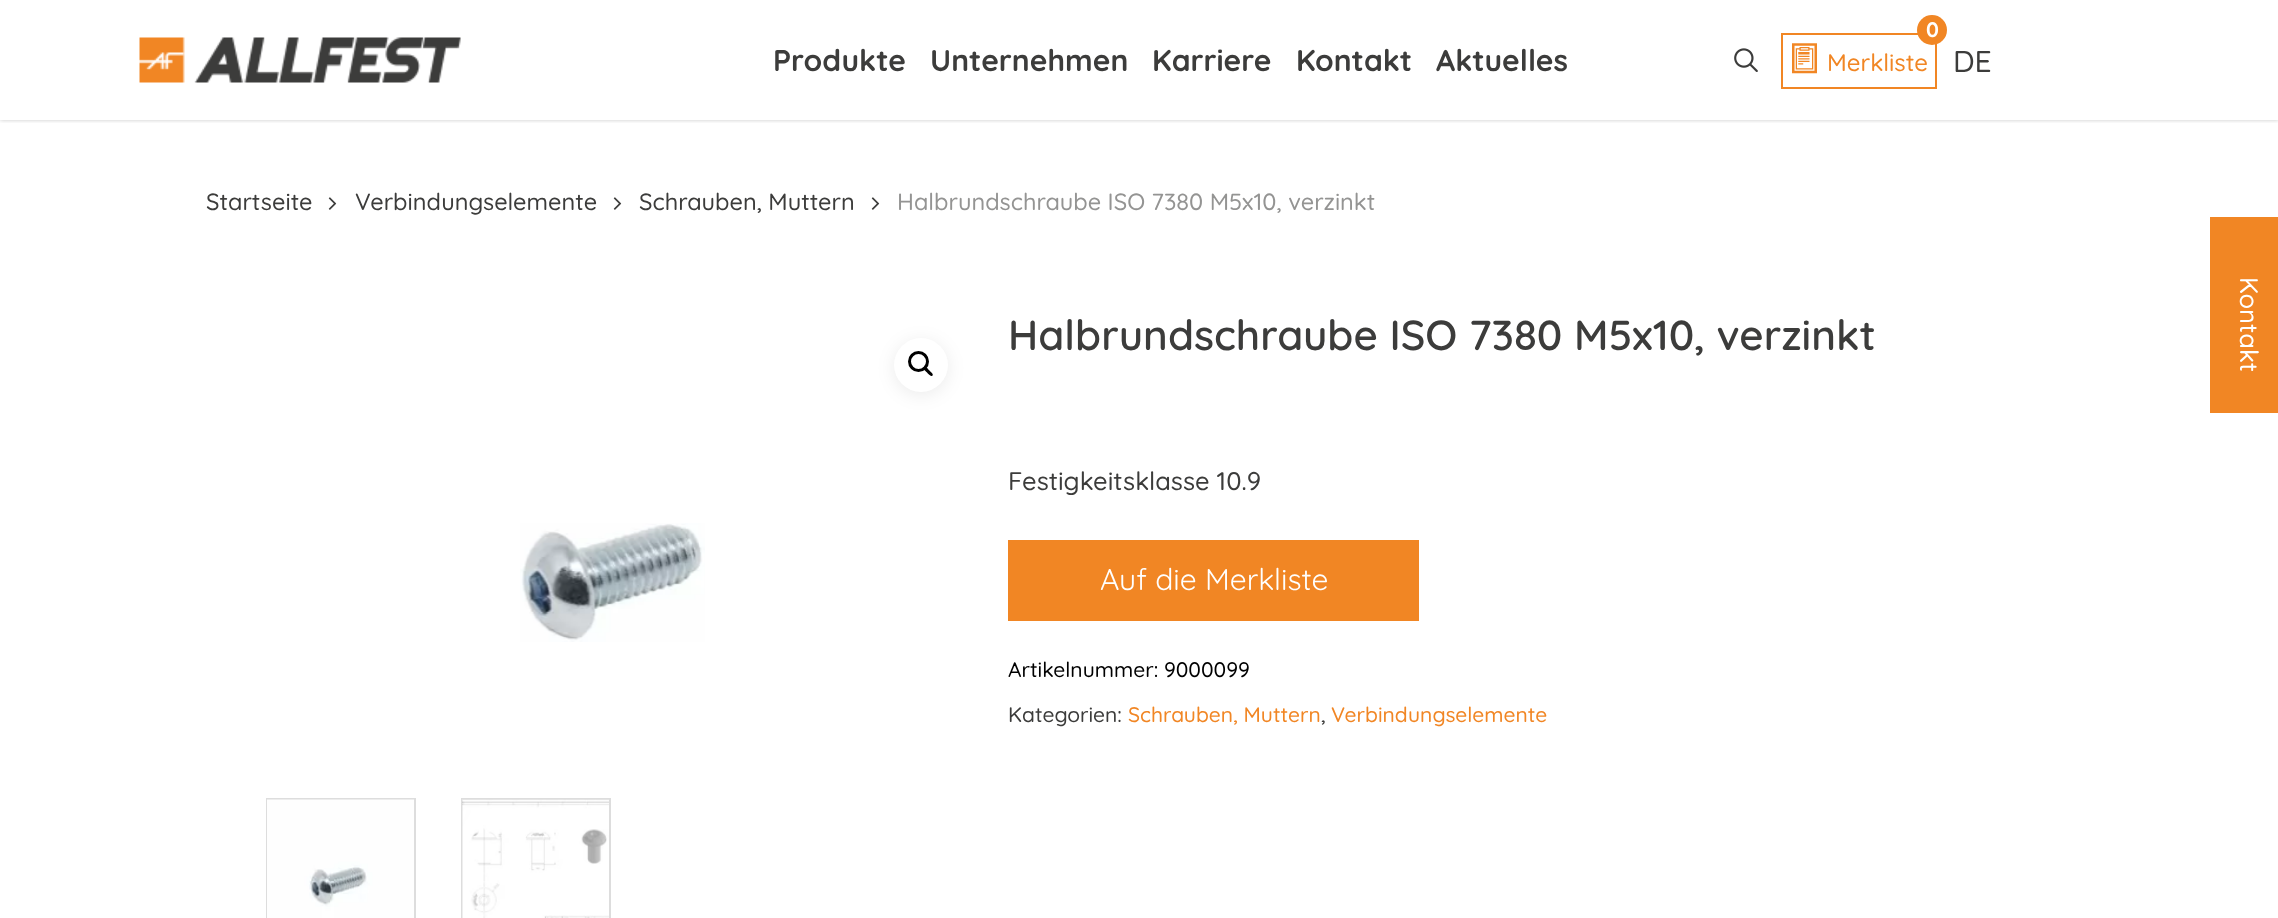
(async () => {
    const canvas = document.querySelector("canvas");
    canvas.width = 2278;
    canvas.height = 918;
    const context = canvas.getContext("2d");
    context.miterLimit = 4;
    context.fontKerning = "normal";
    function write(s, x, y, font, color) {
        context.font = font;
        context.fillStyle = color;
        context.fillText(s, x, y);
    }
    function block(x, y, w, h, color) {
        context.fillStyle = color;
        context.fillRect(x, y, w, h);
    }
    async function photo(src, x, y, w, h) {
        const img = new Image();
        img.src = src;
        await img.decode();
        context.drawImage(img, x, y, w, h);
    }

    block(0, 0, 2278, 918, "rgb(255, 255, 255)");
    context.save();
    context.beginPath();
    context.rect(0, 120, 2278, 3);
    context.clip();
    context.fillStyle = "rgba(0, 0, 0, 0.22)";
    context.filter = "blur(2px)";
    context.beginPath();
    context.rect(0, 0, 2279, 120);
    context.fill();
    context.filter = "none";
    context.restore();
    await photo("media/1.png", 139, 37, 322, 46);
    write("Produkte", 773, 71, "300 30px 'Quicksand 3'", "rgb(60, 60, 59)");
    write("Unternehmen", 930, 71, "300 30px 'Quicksand 3'", "rgb(60, 60, 59)");
    write("Karriere", 1152, 71, "300 30px 'Quicksand 3'", "rgb(60, 60, 59)");
    write("Kontakt", 1296, 71, "300 30px 'Quicksand 3'", "rgb(60, 60, 59)");
    write("Aktuelles", 1436, 71, "300 30px 'Quicksand 3'", "rgb(60, 60, 59)");
    await photo("media/2.png", 1734, 48, 24, 24);
    context.strokeStyle = "rgb(241, 134, 36)";
    context.lineWidth = 2;
    context.strokeRect(1782, 34, 154, 54);
    context.fillStyle = "rgb(241, 134, 36)";
    context.beginPath();
    context.arc(1932, 30, 15, 0, Math.PI * 2);
    context.fill();
    write("0", 1926, 37, "300 21px 'Quicksand 3'", "rgb(255, 255, 255)");
    await photo("media/3.png", 1792, 43, 25, 31);
    write("Merkliste", 1827, 71, "300 24px Quicksand", "rgb(241, 134, 36)");
    write("DE", 1953, 72, "300 30px Quicksand", "rgb(60, 60, 59)");
    write("Startseite", 206, 210, "300 23.5px Quicksand", "rgb(60, 60, 59)");
    await photo("media/4.png", 328, 197, 9, 13);
    write("Verbindungselemente", 355, 210, "300 23.5px Quicksand", "rgb(60, 60, 59)");
    await photo("media/4.png", 613, 197, 9, 13);
    write("Schrauben, Muttern", 639, 210, "300 23.5px Quicksand", "rgb(60, 60, 59)");
    await photo("media/4.png", 871, 197, 9, 13);
    write("Halbrundschraube ISO 7380 M5x10, verzinkt", 897, 210, "300 23.5px Quicksand", "rgb(148, 148, 147)");
    context.fillStyle = "rgba(0, 0, 0, 0.08)";
    context.filter = "blur(9px)";
    context.beginPath();
    context.roundRect(894, 341, 54, 54, 27);
    context.fill();
    context.filter = "none";
    context.fillStyle = "rgb(255, 255, 255)";
    context.beginPath();
    context.arc(921, 365, 27, 0, Math.PI * 2);
    context.fill();
    context.beginPath();
    context.arc(918.5, 361.5, 9, 0, Math.PI * 2);
    context.strokeStyle = "rgb(0, 0, 0)";
    context.lineWidth = 3;
    context.stroke();
    context.fillStyle = "rgb(0, 0, 0)";
    context.beginPath();
    context.moveTo(924, 367);
    context.bezierCurveTo(925.5, 365.5, 928.5, 369.5, 929.5, 370.5);
    context.bezierCurveTo(930, 371.5, 934, 374, 932.5, 375.5);
    context.bezierCurveTo(931, 377.5, 928, 373.5, 927, 372.5);
    context.bezierCurveTo(926, 371.5, 922.5, 369, 924, 367);
    context.closePath();
    context.fill();
    await photo("media/5.png", 520, 523, 185, 119);
    context.strokeStyle = "rgb(221, 221, 221)";
    context.lineWidth = 2;
    context.strokeRect(267, 799, 148, 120);
    await photo("media/6.png", 267, 799, 147, 119);
    context.strokeRect(462, 799, 148, 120);
    await photo("media/7.png", 462, 799, 147, 119);
    write("Halbrundschraube ISO 7380 M5x10, verzinkt", 1008, 350, "600 42px Quicksand", "rgb(60, 60, 59)");
    write("Festigkeitsklasse 10.9", 1008, 490, "300 25.5px Quicksand", "rgb(60, 60, 59)");
    block(1008, 540, 411, 81, "rgb(241, 134, 36)");
    write("Auf die Merkliste", 1100, 590, "300 30px 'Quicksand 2'", "rgb(255, 255, 255)");
    write("Artikelnummer: 9000099", 1008, 677, "300 21px Quicksand", "rgb(0, 0, 0)");
    write("Kategorien:", 1008, 722, "300 21px Quicksand", "rgb(60, 60, 59)");
    write("Schrauben, Muttern", 1128, 722, "300 21px Quicksand", "rgb(241, 134, 36)");
    write(",", 1321, 722, "300 21px Quicksand", "rgb(60, 60, 59)");
    write("Verbindungselemente", 1331, 722, "300 21px Quicksand", "rgb(241, 134, 36)");
    block(2210, 217, 68, 196, "rgb(241, 134, 36)");
    context.font = "300 25.5px Quicksand";
    context.fillStyle = "rgb(255, 255, 255)";
    context.save();
    context.translate(2240, 277);
    context.rotate(90 * Math.PI / 180);
    context.fillText("Kontakt", 0, 0);
    context.restore();
})();
